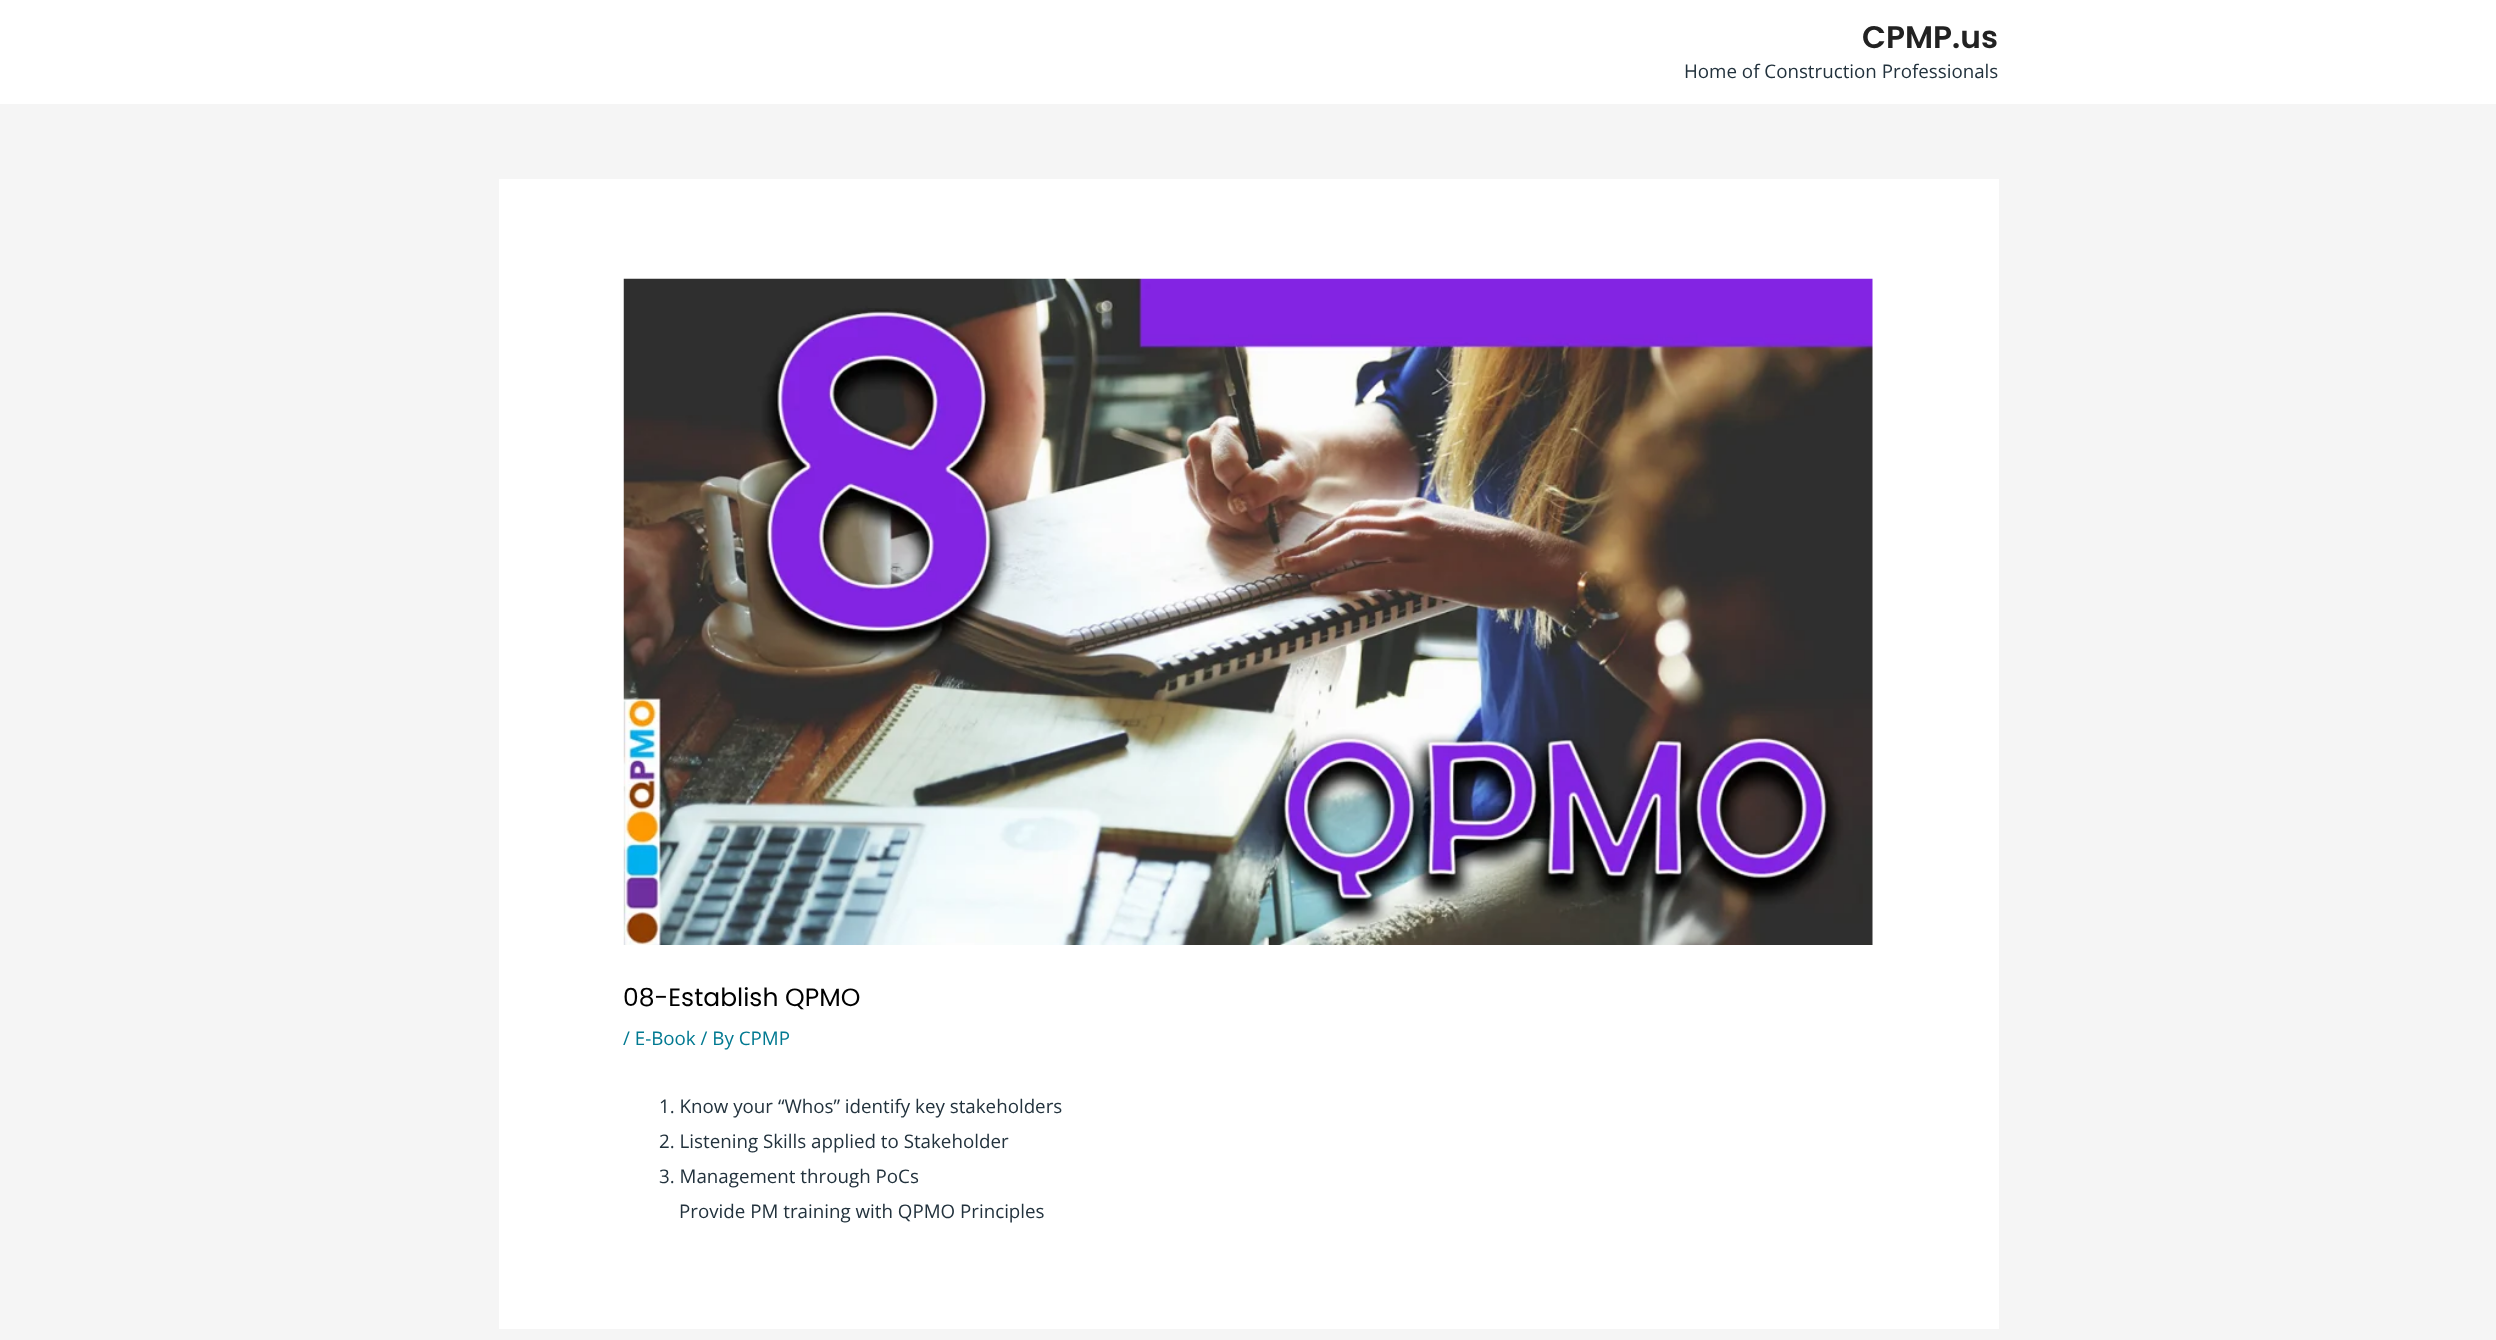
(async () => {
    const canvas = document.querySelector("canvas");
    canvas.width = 2496;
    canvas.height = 1340;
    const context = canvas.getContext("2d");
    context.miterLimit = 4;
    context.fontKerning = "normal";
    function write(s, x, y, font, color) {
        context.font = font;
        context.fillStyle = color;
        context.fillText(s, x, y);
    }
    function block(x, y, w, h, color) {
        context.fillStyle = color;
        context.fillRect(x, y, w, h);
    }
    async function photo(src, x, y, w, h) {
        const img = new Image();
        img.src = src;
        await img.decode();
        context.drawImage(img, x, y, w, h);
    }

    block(0, 0, 2496, 1340, "rgb(245, 245, 245)");
    block(0, 0, 2496, 104, "rgb(255, 255, 255)");
    write("CPMP.us", 1862, 48, "600 31.25px Poppins", "rgb(34, 34, 34)");
    write("Home of Construction Professionals", 1684, 78, "18.75px Open Sans", "rgb(34, 50, 61)");
    block(499, 179, 1500, 1150, "rgb(255, 255, 255)");
    await photo("media/1.png", 623, 278, 1250, 667);
    write("08-Establish QPMO", 623, 1006, "25px Poppins", "rgb(0, 0, 0)");
    write("/ E-Book / By CPMP", 623, 1045, "18.75px Open Sans", "rgb(0, 121, 145)");
    write("1. Know your “Whos” identify key stakeholders", 659, 1113, "18.75px Open Sans", "rgb(34, 50, 61)");
    write("2. Listening Skills applied to Stakeholder", 659, 1148, "18.75px Open Sans", "rgb(34, 50, 61)");
    write("3. Management through PoCs", 659, 1183, "18.75px Open Sans", "rgb(34, 50, 61)");
    write("Provide PM training with QPMO Principles", 679, 1218, "18.75px Open Sans", "rgb(34, 50, 61)");
})();
